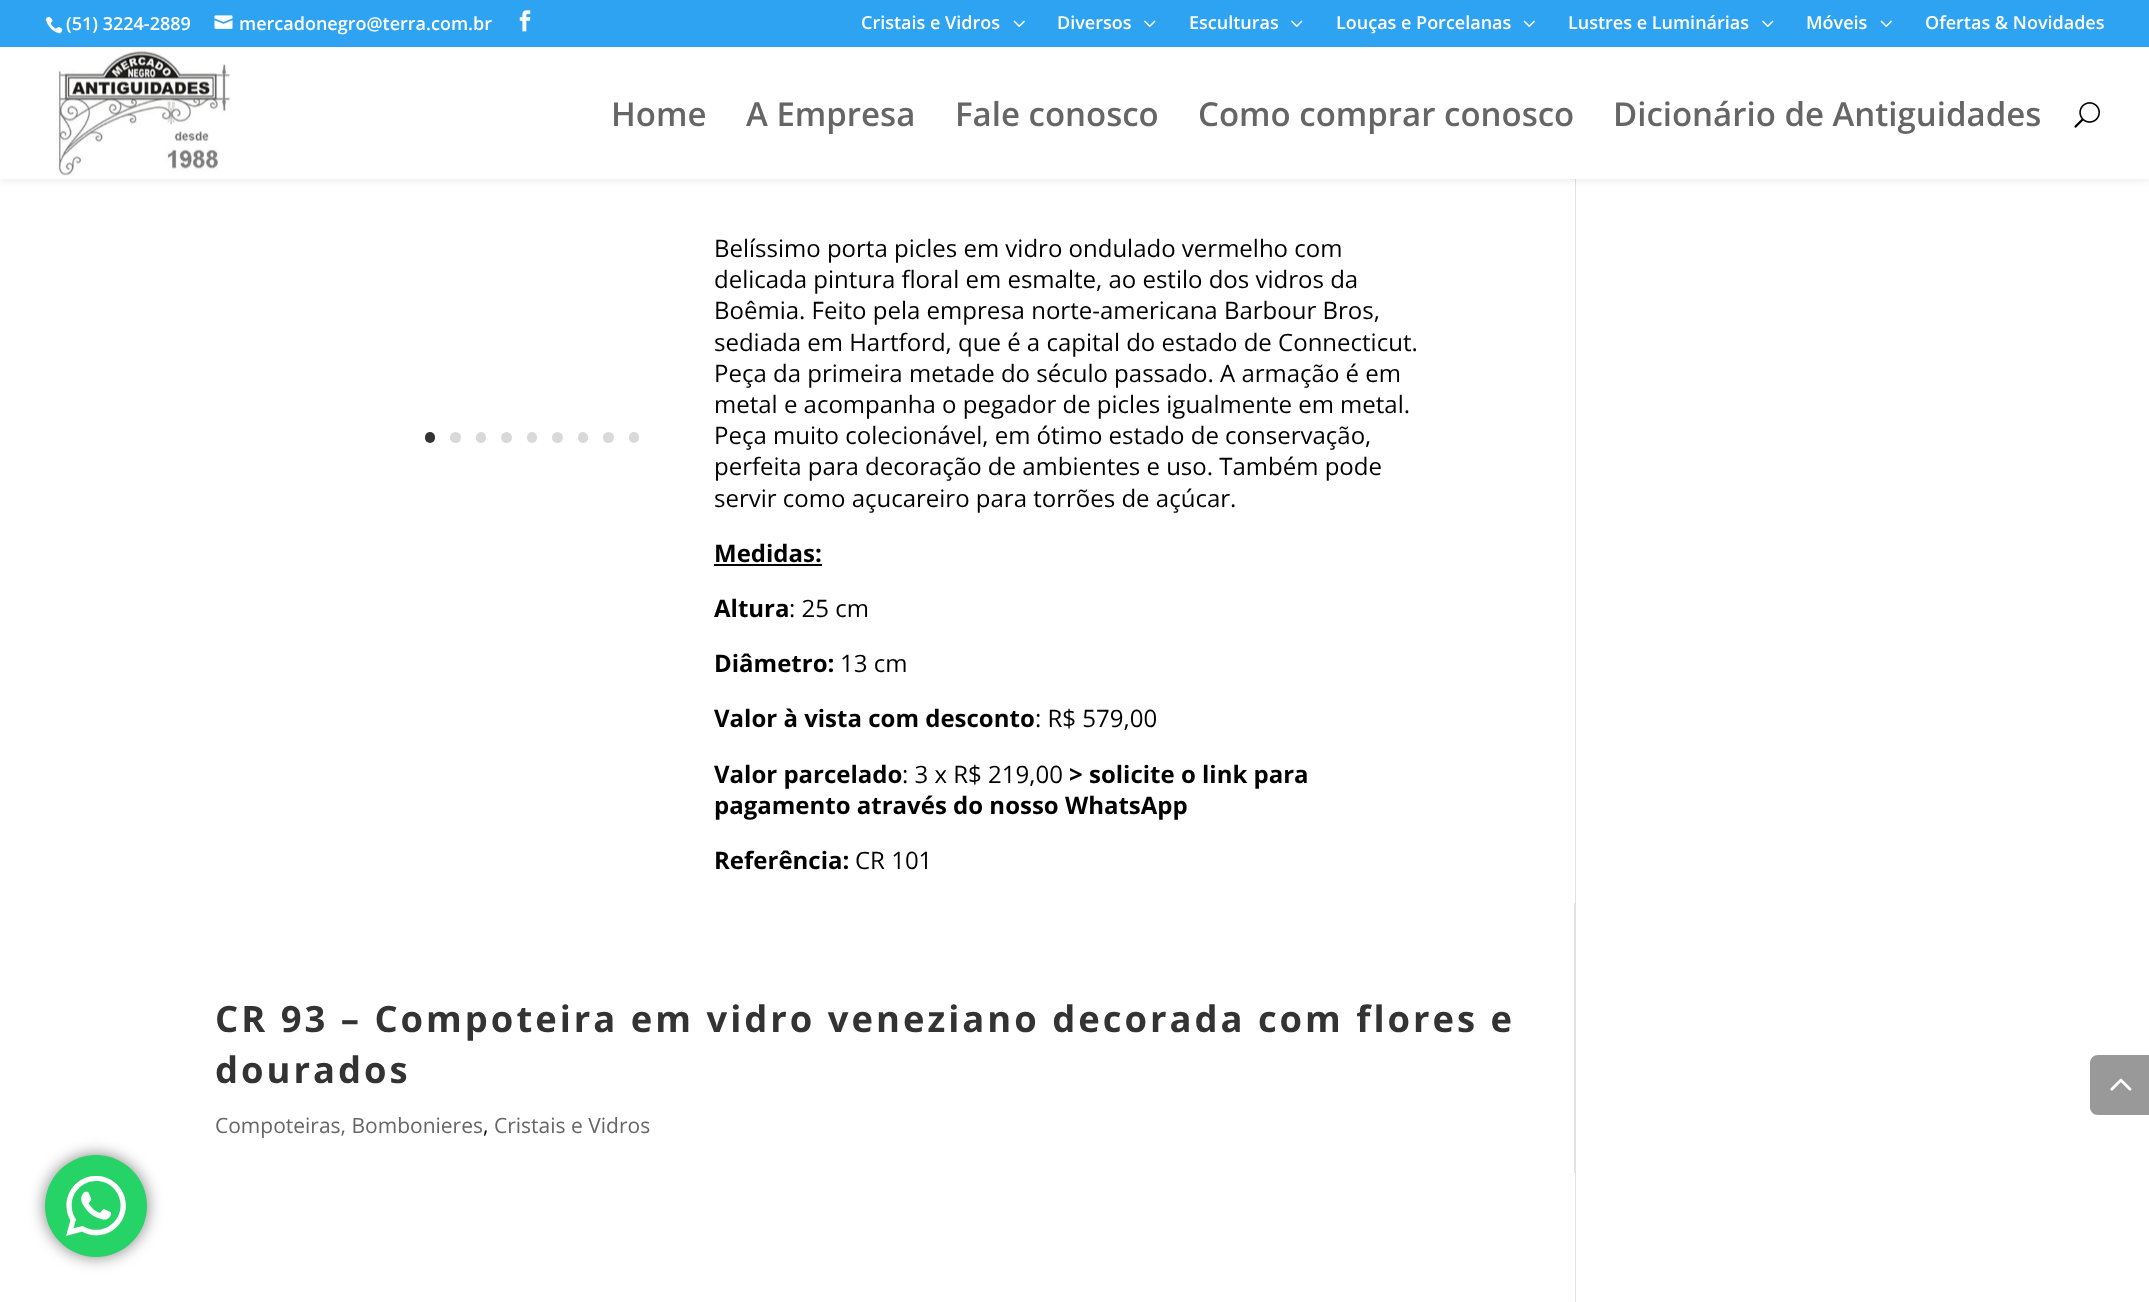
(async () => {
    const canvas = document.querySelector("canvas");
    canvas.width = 2149;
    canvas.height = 1302;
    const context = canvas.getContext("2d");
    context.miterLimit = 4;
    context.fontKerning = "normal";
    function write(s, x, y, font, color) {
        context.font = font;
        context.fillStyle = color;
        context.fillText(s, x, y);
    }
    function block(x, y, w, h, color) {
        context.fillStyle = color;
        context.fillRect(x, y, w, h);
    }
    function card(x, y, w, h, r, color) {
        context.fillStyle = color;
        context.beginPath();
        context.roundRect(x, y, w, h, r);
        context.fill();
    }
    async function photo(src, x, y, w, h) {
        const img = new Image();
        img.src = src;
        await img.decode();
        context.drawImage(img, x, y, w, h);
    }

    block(0, 0, 2149, 1302, "rgb(255, 255, 255)");
    block(1574, 179, 2, 1123, "rgb(226, 226, 226)");
    block(1574, 179, 1, 724, "rgb(255, 255, 255)");
    context.fillStyle = "rgba(0, 0, 0, 0.1)";
    context.filter = "blur(5px)";
    context.beginPath();
    context.rect(0, 47, 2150, 132);
    context.fill();
    context.filter = "none";
    block(0, 0, 2149, 47, "rgb(46, 163, 242)");
    await photo("media/1.png", 45, 16, 18, 18);
    write("(51) 3224-2889", 66, 30, "600 18px Open Sans", "rgb(255, 255, 255)");
    await photo("media/2.png", 214, 15, 19, 14);
    write("mercadonegro@terra.com.br", 239, 30, "600 18px Open Sans", "rgb(255, 255, 255)");
    await photo("media/3.png", 519, 10, 12, 22);
    write("Cristais e Vidros", 861, 29, "600 18px Open Sans", "rgb(255, 255, 255)");
    await photo("media/4.png", 1013, 20, 12, 7);
    write("Diversos", 1057, 29, "600 18px Open Sans", "rgb(255, 255, 255)");
    await photo("media/5.png", 1144, 20, 12, 7);
    write("Esculturas", 1189, 29, "600 18px Open Sans", "rgb(255, 255, 255)");
    await photo("media/5.png", 1291, 20, 12, 7);
    write("Louças e Porcelanas", 1336, 29, "600 18px Open Sans", "rgb(255, 255, 255)");
    await photo("media/4.png", 1523, 20, 12, 7);
    write("Lustres e Luminárias", 1568, 29, "600 18px Open Sans", "rgb(255, 255, 255)");
    await photo("media/5.png", 1762, 20, 12, 7);
    write("Móveis", 1806, 29, "600 18px Open Sans", "rgb(255, 255, 255)");
    await photo("media/4.png", 1880, 20, 12, 7);
    write("Ofertas & Novidades", 1925, 29, "600 18px Open Sans", "rgb(255, 255, 255)");
    block(0, 47, 2149, 132, "rgb(255, 255, 255)");
    await photo("media/6.png", 56, 47, 174, 129);
    write("Home", 611, 126, "600 33px Open Sans", "rgb(102, 102, 102)");
    write("A Empresa", 746, 126, "600 33px Open Sans", "rgb(102, 102, 102)");
    write("Fale conosco", 955, 126, "600 33px Open Sans", "rgb(102, 102, 102)");
    write("Como comprar conosco", 1198, 126, "600 33px Open Sans", "rgb(102, 102, 102)");
    write("Dicionário de Antiguidades", 1613, 126, "600 33px Open Sans", "rgb(102, 102, 102)");
    await photo("media/7.png", 2074, 102, 26, 26);
    card(425, 432, 10, 11, 5, "rgb(51, 51, 51)");
    context.fillStyle = "rgb(217, 217, 217)";
    context.beginPath();
    context.arc(455.5, 437.5, 5.5, 0, Math.PI * 2);
    context.fill();
    card(476, 432, 10, 11, 5, "rgb(217, 217, 217)");
    context.beginPath();
    context.arc(506.5, 437.5, 5.5, 0, Math.PI * 2);
    context.fill();
    card(527, 432, 10, 11, 5, "rgb(217, 217, 217)");
    context.beginPath();
    context.arc(557.5, 437.5, 5.5, 0, Math.PI * 2);
    context.fill();
    card(578, 432, 10, 11, 5, "rgb(217, 217, 217)");
    context.beginPath();
    context.arc(608.5, 437.5, 5.5, 0, Math.PI * 2);
    context.fill();
    card(629, 432, 10, 11, 5, "rgb(217, 217, 217)");
    write("Belíssimo porta picles em vidro ondulado vermelho com", 714, 257, "24px Open Sans", "rgb(0, 0, 0)");
    write("delicada pintura floral em esmalte, ao estilo dos vidros da", 714, 288, "24px Open Sans", "rgb(0, 0, 0)");
    write("Boêmia. Feito pela empresa norte-americana Barbour Bros,", 714, 319, "24px Open Sans", "rgb(0, 0, 0)");
    write("sediada em Hartford, que é a capital do estado de Connecticut.", 714, 351, "24px Open Sans", "rgb(0, 0, 0)");
    write("Peça da primeira metade do século passado. A armação é em", 714, 382, "24px Open Sans", "rgb(0, 0, 0)");
    write("metal e acompanha o pegador de picles igualmente em metal.", 714, 413, "24px Open Sans", "rgb(0, 0, 0)");
    write("Peça muito colecionável, em ótimo estado de conservação,", 714, 444, "24px Open Sans", "rgb(0, 0, 0)");
    write("perfeita para decoração de ambientes e uso. Também pode", 714, 475, "24px Open Sans", "rgb(0, 0, 0)");
    write("servir como açucareiro para torrões de açúcar.", 714, 507, "24px Open Sans", "rgb(0, 0, 0)");
    write("Medidas:", 714, 562, "bold 24px Open Sans", "rgb(0, 0, 0)");
    block(714, 564, 108, 2, "rgb(0, 0, 0)");
    write("Altura", 714, 617, "bold 24px Open Sans", "rgb(0, 0, 0)");
    write(": 25 cm", 789, 617, "24px Open Sans", "rgb(0, 0, 0)");
    write("Diâmetro:", 714, 672, "bold 24px Open Sans", "rgb(0, 0, 0)");
    write("13 cm", 840, 672, "24px Open Sans", "rgb(0, 0, 0)");
    write("Valor à vista com desconto", 714, 727, "bold 24px Open Sans", "rgb(0, 0, 0)");
    write(": R$ 579,00", 1035, 727, "24px Open Sans", "rgb(0, 0, 0)");
    write("Valor parcelado", 714, 783, "bold 24px Open Sans", "rgb(0, 0, 0)");
    write(": 3 x R$ 219,00", 902, 783, "24px Open Sans", "rgb(0, 0, 0)");
    write("> solicite o link para", 1069, 783, "bold 24px Open Sans", "rgb(0, 0, 0)");
    write("pagamento através do nosso WhatsApp", 714, 814, "bold 24px Open Sans", "rgb(0, 0, 0)");
    write("Referência:", 714, 869, "bold 24px Open Sans", "rgb(0, 0, 0)");
    write("CR 101", 855, 869, "24px Open Sans", "rgb(0, 0, 0)");
    context.letterSpacing = "3px";
    write("CR 93 – Compoteira em vidro veneziano decorada com flores e", 215, 1032, "bold 36.4px Open Sans", "rgb(51, 51, 51)");
    write("dourados", 215, 1083, "bold 36.4px Open Sans", "rgb(51, 51, 51)");
    context.letterSpacing = "0px";
    write("Compoteiras, Bombonieres", 215, 1133, "21px Open Sans", "rgb(102, 102, 102)");
    write(",", 483, 1133, "21px Open Sans", "rgb(0, 0, 0)");
    write("Cristais e Vidros", 494, 1133, "21px Open Sans", "rgb(102, 102, 102)");
    block(1574, 1173, 1, 129, "rgb(255, 255, 255)");
    context.fillStyle = "rgb(153, 153, 153)";
    context.beginPath();
    context.moveTo(2098, 1055);
    context.lineTo(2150, 1055);
    context.lineTo(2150, 1115);
    context.lineTo(2098, 1115);
    context.bezierCurveTo(2093.5, 1115, 2090, 1111.5, 2090, 1107);
    context.lineTo(2090, 1063);
    context.bezierCurveTo(2090, 1058.5, 2093.5, 1055, 2098, 1055);
    context.closePath();
    context.fill();
    await photo("media/8.png", 2110, 1078, 22, 13);
    context.fillStyle = "rgba(0, 0, 0, 0.5)";
    context.filter = "blur(8px)";
    context.beginPath();
    context.roundRect(45, 1155, 102, 102, 51);
    context.fill();
    context.filter = "none";
    context.fillStyle = "rgb(37, 211, 102)";
    context.beginPath();
    context.arc(96, 1206, 51, 0, Math.PI * 2);
    context.fill();
    await photo("media/9.png", 66, 1176, 60, 60);
})();
